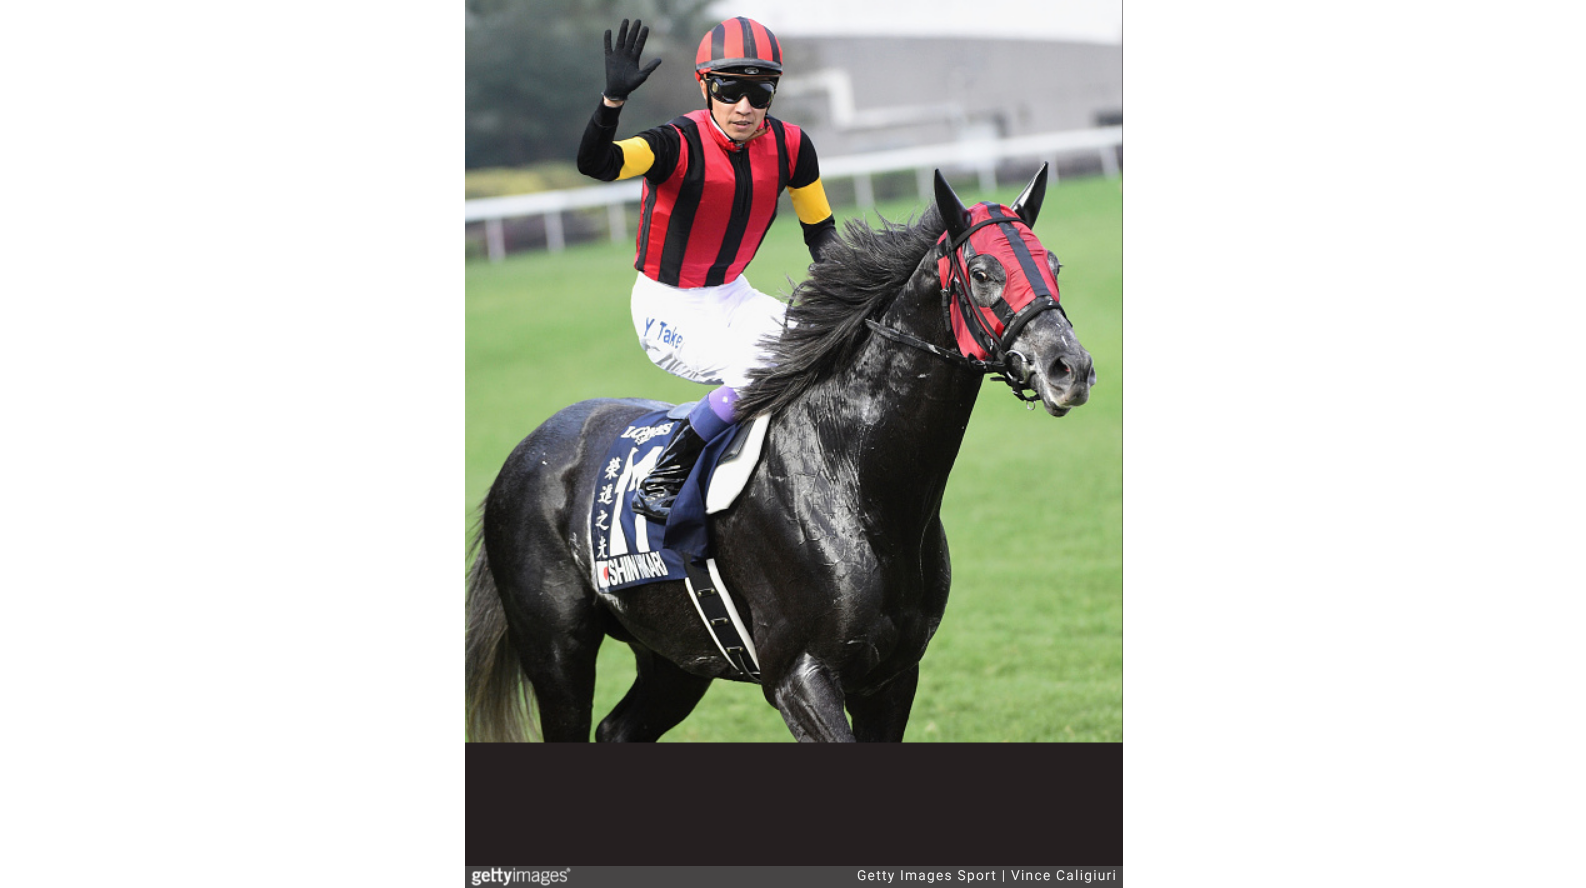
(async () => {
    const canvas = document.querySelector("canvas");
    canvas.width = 1586;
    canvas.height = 888;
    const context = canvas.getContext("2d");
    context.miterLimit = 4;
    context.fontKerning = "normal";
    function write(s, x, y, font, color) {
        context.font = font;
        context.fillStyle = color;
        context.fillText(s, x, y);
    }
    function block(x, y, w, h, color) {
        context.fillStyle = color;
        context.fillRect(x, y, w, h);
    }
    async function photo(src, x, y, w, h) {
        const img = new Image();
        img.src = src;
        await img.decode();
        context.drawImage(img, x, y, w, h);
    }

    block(0, 0, 1586, 888, "rgb(255, 255, 255)");
    block(465, 0, 658, 866, "rgb(37, 31, 32)");
    await photo("media/1.png", 465, 0, 658, 743);
    block(465, 866, 658, 22, "rgb(71, 69, 69)");
    await photo("media/2.png", 470, 867, 101, 19);
    context.letterSpacing = "1.25px";
    write("Getty Images Sport | Vince Caligiuri", 857, 880, "13.75px Roboto", "rgb(238, 238, 238)");
})();
